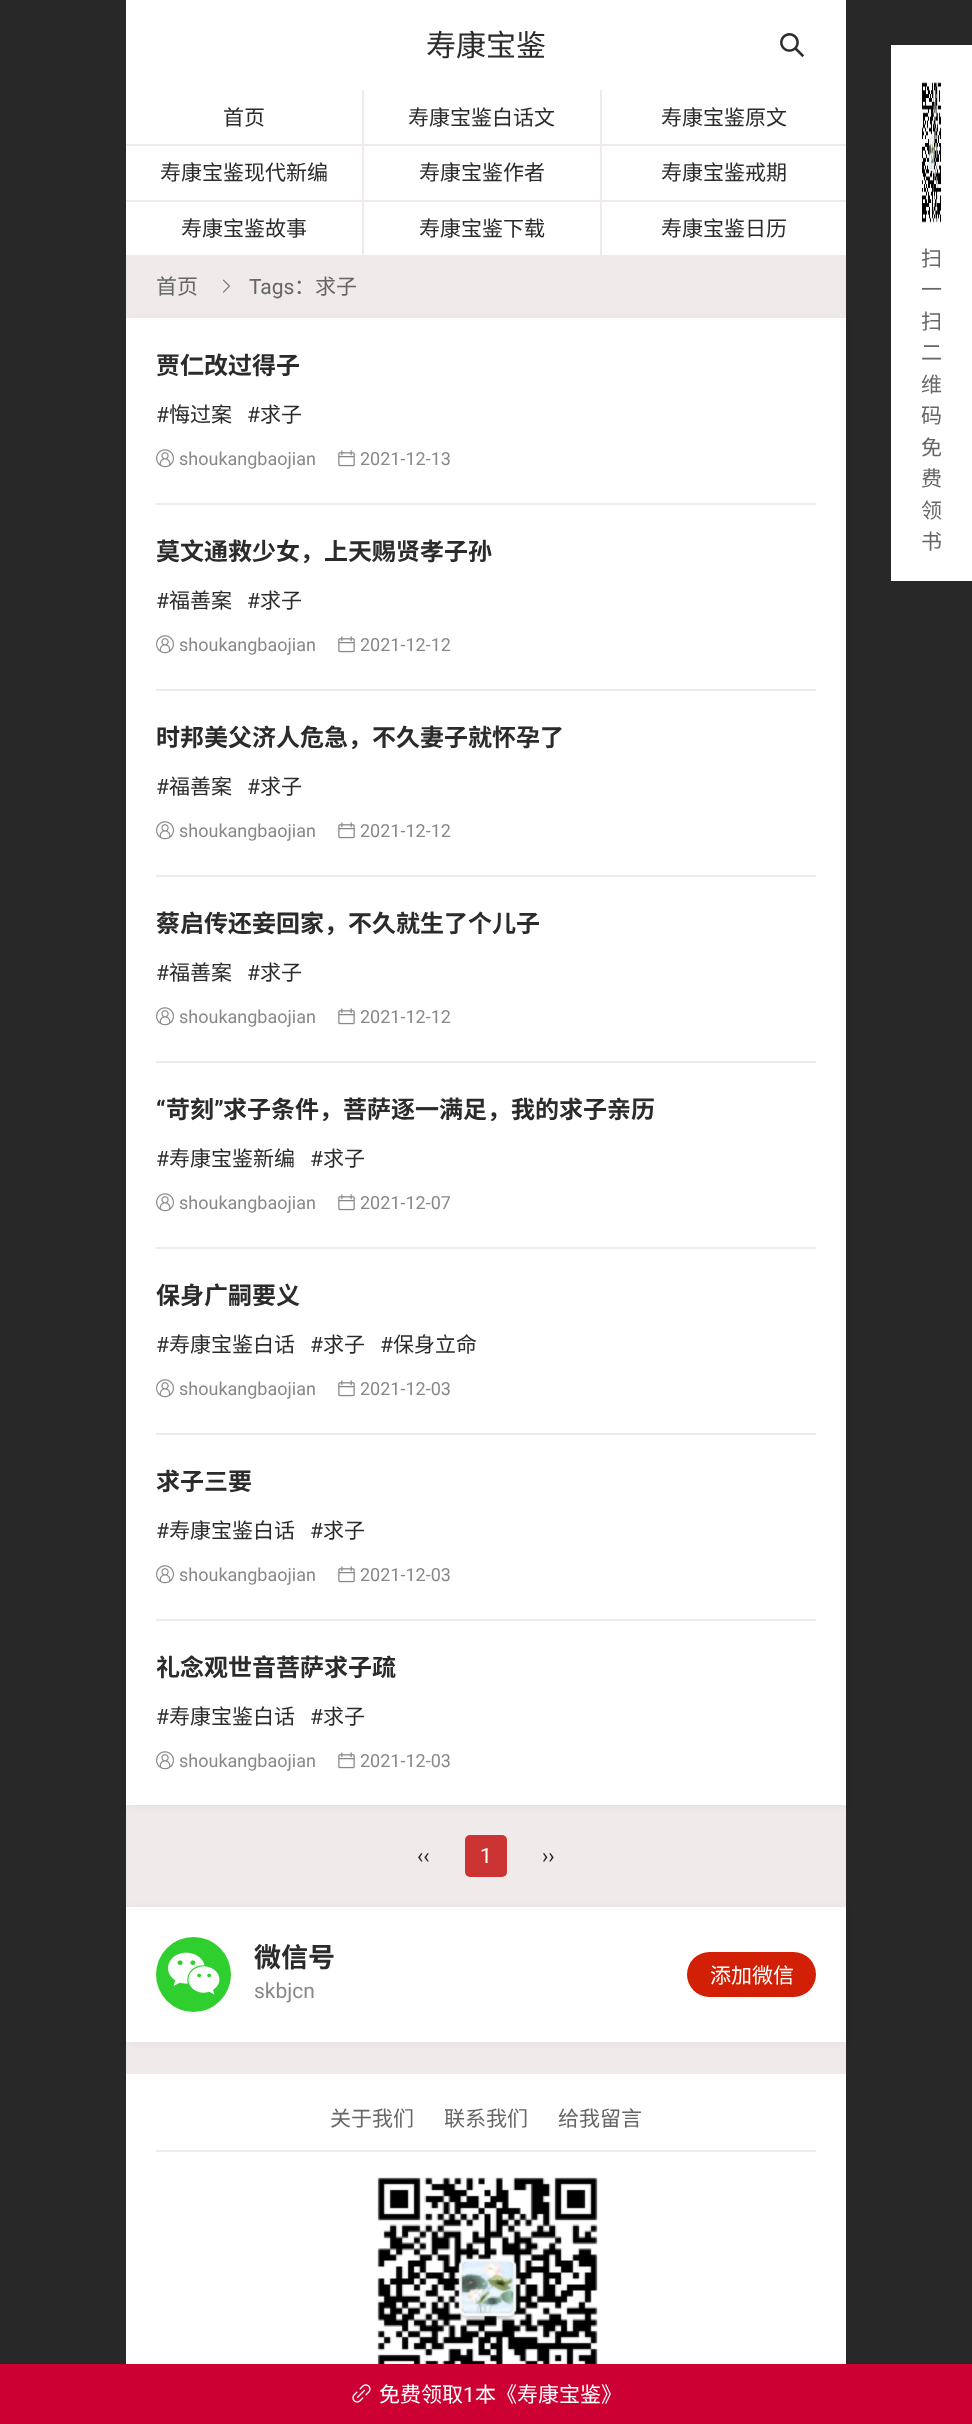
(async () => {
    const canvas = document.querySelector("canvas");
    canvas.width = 972;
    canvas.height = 2424;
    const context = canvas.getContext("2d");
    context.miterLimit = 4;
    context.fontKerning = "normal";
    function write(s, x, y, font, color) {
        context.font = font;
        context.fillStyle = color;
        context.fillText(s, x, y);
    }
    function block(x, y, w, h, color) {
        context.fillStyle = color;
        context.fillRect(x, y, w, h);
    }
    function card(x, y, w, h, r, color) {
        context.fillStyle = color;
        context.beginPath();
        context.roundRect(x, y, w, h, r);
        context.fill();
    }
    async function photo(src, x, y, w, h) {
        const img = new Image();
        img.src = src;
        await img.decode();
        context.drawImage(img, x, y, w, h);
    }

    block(0, 0, 972, 2424, "rgb(40, 40, 40)");
    block(126, 0, 720, 255, "rgb(255, 255, 255)");
    write("寿康宝鉴", 426, 56, "30px Noto Sans CJK SC", "rgb(43, 43, 43)");
    await photo("media/1.png", 780, 33, 24, 24);
    block(126, 257, 720, 1817, "rgb(240, 235, 234)");
    block(362, 90, 2, 111, "rgb(240, 235, 234)");
    block(126, 144, 237, 2, "rgb(240, 235, 234)");
    write("首页", 223, 125, "21px Noto Sans CJK SC", "rgb(43, 43, 43)");
    block(600, 90, 2, 111, "rgb(240, 235, 234)");
    block(363, 144, 483, 2, "rgb(240, 235, 234)");
    write("寿康宝鉴白话文", 408, 125, "21px Noto Sans CJK SC", "rgb(43, 43, 43)");
    write("寿康宝鉴原文", 661, 125, "21px Noto Sans CJK SC", "rgb(43, 43, 43)");
    block(126, 200, 720, 2, "rgb(240, 235, 234)");
    write("寿康宝鉴现代新编", 160, 180, "21px Noto Sans CJK SC", "rgb(43, 43, 43)");
    write("寿康宝鉴作者", 419, 180, "21px Noto Sans CJK SC", "rgb(43, 43, 43)");
    write("寿康宝鉴戒期", 661, 180, "21px Noto Sans CJK SC", "rgb(43, 43, 43)");
    block(362, 201, 2, 56, "rgb(240, 235, 234)");
    block(126, 255, 237, 2, "rgb(240, 235, 234)");
    write("寿康宝鉴故事", 181, 236, "21px Noto Sans CJK SC", "rgb(43, 43, 43)");
    block(600, 201, 2, 56, "rgb(240, 235, 234)");
    block(363, 255, 483, 2, "rgb(240, 235, 234)");
    write("寿康宝鉴下载", 419, 236, "21px Noto Sans CJK SC", "rgb(43, 43, 43)");
    write("寿康宝鉴日历", 661, 236, "21px Noto Sans CJK SC", "rgb(43, 43, 43)");
    write("首页", 156, 294, "21px Noto Sans CJK SC", "rgb(102, 102, 102)");
    await photo("media/2.png", 223, 279, 7, 14);
    write("Tags", 249, 294, "21px Roboto", "rgb(102, 102, 102)");
    write("：求子", 294, 294, "21px Noto Sans CJK SC", "rgb(102, 102, 102)");
    context.fillStyle = "rgba(0, 0, 0, 0.05)";
    context.filter = "blur(4px)";
    context.beginPath();
    context.rect(126, 320, 720, 1486);
    context.fill();
    context.filter = "none";
    block(126, 318, 720, 1487, "rgb(255, 255, 255)");
    block(156, 503, 660, 2, "rgb(240, 235, 234)");
    write("贾仁改过得子", 156, 374, "bold 24px Noto Sans CJK SC", "rgb(43, 43, 43)");
    write("#", 156, 422, "21px Roboto", "rgb(43, 43, 43)");
    write("悔过案", 169, 422, "21px Noto Sans CJK SC", "rgb(43, 43, 43)");
    write("#", 247, 422, "21px Roboto", "rgb(43, 43, 43)");
    write("求子", 260, 422, "21px Noto Sans CJK SC", "rgb(43, 43, 43)");
    await photo("media/3.png", 156, 449, 18, 19);
    write("shoukangbaojian", 179, 465, "18px Roboto", "rgb(136, 136, 136)");
    await photo("media/4.png", 338, 450, 17, 17);
    write("2021-12-13", 360, 465, "18px Roboto", "rgb(136, 136, 136)");
    block(156, 689, 660, 2, "rgb(240, 235, 234)");
    write("莫文通救少女，上天赐贤孝子孙", 156, 560, "bold 24px Noto Sans CJK SC", "rgb(43, 43, 43)");
    write("#", 156, 608, "21px Roboto", "rgb(43, 43, 43)");
    write("福善案", 169, 608, "21px Noto Sans CJK SC", "rgb(43, 43, 43)");
    write("#", 247, 608, "21px Roboto", "rgb(43, 43, 43)");
    write("求子", 260, 608, "21px Noto Sans CJK SC", "rgb(43, 43, 43)");
    await photo("media/3.png", 156, 635, 18, 19);
    write("shoukangbaojian", 179, 651, "18px Roboto", "rgb(136, 136, 136)");
    await photo("media/4.png", 338, 636, 17, 17);
    write("2021-12-12", 360, 651, "18px Roboto", "rgb(136, 136, 136)");
    block(156, 875, 660, 2, "rgb(240, 235, 234)");
    write("时邦美父济人危急，不久妻子就怀孕了", 156, 746, "bold 24px Noto Sans CJK SC", "rgb(43, 43, 43)");
    write("#", 156, 794, "21px Roboto", "rgb(43, 43, 43)");
    write("福善案", 169, 794, "21px Noto Sans CJK SC", "rgb(43, 43, 43)");
    write("#", 247, 794, "21px Roboto", "rgb(43, 43, 43)");
    write("求子", 260, 794, "21px Noto Sans CJK SC", "rgb(43, 43, 43)");
    await photo("media/3.png", 156, 821, 18, 19);
    write("shoukangbaojian", 179, 837, "18px Roboto", "rgb(136, 136, 136)");
    await photo("media/4.png", 338, 822, 17, 17);
    write("2021-12-12", 360, 837, "18px Roboto", "rgb(136, 136, 136)");
    block(156, 1061, 660, 2, "rgb(240, 235, 234)");
    write("蔡启传还妾回家，不久就生了个儿子", 156, 932, "bold 24px Noto Sans CJK SC", "rgb(43, 43, 43)");
    write("#", 156, 980, "21px Roboto", "rgb(43, 43, 43)");
    write("福善案", 169, 980, "21px Noto Sans CJK SC", "rgb(43, 43, 43)");
    write("#", 247, 980, "21px Roboto", "rgb(43, 43, 43)");
    write("求子", 260, 980, "21px Noto Sans CJK SC", "rgb(43, 43, 43)");
    await photo("media/3.png", 156, 1007, 18, 19);
    write("shoukangbaojian", 179, 1023, "18px Roboto", "rgb(136, 136, 136)");
    await photo("media/4.png", 338, 1008, 17, 17);
    write("2021-12-12", 360, 1023, "18px Roboto", "rgb(136, 136, 136)");
    block(156, 1247, 660, 2, "rgb(240, 235, 234)");
    write("“", 156, 1118, "bold 24px Roboto", "rgb(43, 43, 43)");
    write("苛刻", 166, 1118, "bold 24px Noto Sans CJK SC", "rgb(43, 43, 43)");
    write("”", 214, 1118, "bold 24px Roboto", "rgb(43, 43, 43)");
    write("求子条件，菩萨逐一满足，我的求子亲历", 223, 1118, "bold 24px Noto Sans CJK SC", "rgb(43, 43, 43)");
    write("#", 156, 1166, "21px Roboto", "rgb(43, 43, 43)");
    write("寿康宝鉴新编", 169, 1166, "21px Noto Sans CJK SC", "rgb(43, 43, 43)");
    write("#", 310, 1166, "21px Roboto", "rgb(43, 43, 43)");
    write("求子", 323, 1166, "21px Noto Sans CJK SC", "rgb(43, 43, 43)");
    await photo("media/3.png", 156, 1193, 18, 19);
    write("shoukangbaojian", 179, 1209, "18px Roboto", "rgb(136, 136, 136)");
    await photo("media/4.png", 338, 1194, 17, 17);
    write("2021-12-07", 360, 1209, "18px Roboto", "rgb(136, 136, 136)");
    block(156, 1433, 660, 2, "rgb(240, 235, 234)");
    write("保身广嗣要义", 156, 1304, "bold 24px Noto Sans CJK SC", "rgb(43, 43, 43)");
    write("#", 156, 1352, "21px Roboto", "rgb(43, 43, 43)");
    write("寿康宝鉴白话", 169, 1352, "21px Noto Sans CJK SC", "rgb(43, 43, 43)");
    write("#", 310, 1352, "21px Roboto", "rgb(43, 43, 43)");
    write("求子", 323, 1352, "21px Noto Sans CJK SC", "rgb(43, 43, 43)");
    write("#", 380, 1352, "21px Roboto", "rgb(43, 43, 43)");
    write("保身立命", 393, 1352, "21px Noto Sans CJK SC", "rgb(43, 43, 43)");
    await photo("media/3.png", 156, 1379, 18, 19);
    write("shoukangbaojian", 179, 1395, "18px Roboto", "rgb(136, 136, 136)");
    await photo("media/4.png", 338, 1380, 17, 17);
    write("2021-12-03", 360, 1395, "18px Roboto", "rgb(136, 136, 136)");
    block(156, 1619, 660, 2, "rgb(240, 235, 234)");
    write("求子三要", 156, 1490, "bold 24px Noto Sans CJK SC", "rgb(43, 43, 43)");
    write("#", 156, 1538, "21px Roboto", "rgb(43, 43, 43)");
    write("寿康宝鉴白话", 169, 1538, "21px Noto Sans CJK SC", "rgb(43, 43, 43)");
    write("#", 310, 1538, "21px Roboto", "rgb(43, 43, 43)");
    write("求子", 323, 1538, "21px Noto Sans CJK SC", "rgb(43, 43, 43)");
    await photo("media/3.png", 156, 1565, 18, 19);
    write("shoukangbaojian", 179, 1581, "18px Roboto", "rgb(136, 136, 136)");
    await photo("media/4.png", 338, 1566, 17, 17);
    write("2021-12-03", 360, 1581, "18px Roboto", "rgb(136, 136, 136)");
    write("礼念观世音菩萨求子疏", 156, 1676, "bold 24px Noto Sans CJK SC", "rgb(43, 43, 43)");
    write("#", 156, 1724, "21px Roboto", "rgb(43, 43, 43)");
    write("寿康宝鉴白话", 169, 1724, "21px Noto Sans CJK SC", "rgb(43, 43, 43)");
    write("#", 310, 1724, "21px Roboto", "rgb(43, 43, 43)");
    write("求子", 323, 1724, "21px Noto Sans CJK SC", "rgb(43, 43, 43)");
    await photo("media/3.png", 156, 1751, 18, 19);
    write("shoukangbaojian", 179, 1767, "18px Roboto", "rgb(136, 136, 136)");
    await photo("media/4.png", 338, 1752, 17, 17);
    write("2021-12-03", 360, 1767, "18px Roboto", "rgb(136, 136, 136)");
    write("‹‹", 417, 1863, "21px Roboto", "rgb(43, 43, 43)");
    card(465, 1835, 42, 42, 5, "rgb(204, 51, 51)");
    write("1", 480, 1863, "21px Roboto", "rgb(255, 255, 255)");
    write("››", 542, 1863, "21px Roboto", "rgb(43, 43, 43)");
    context.fillStyle = "rgba(0, 0, 0, 0.05)";
    context.filter = "blur(4px)";
    context.beginPath();
    context.rect(126, 1908, 720, 135);
    context.fill();
    context.filter = "none";
    block(126, 1907, 720, 135, "rgb(255, 255, 255)");
    context.fillStyle = "rgb(48, 207, 48)";
    context.beginPath();
    context.arc(193.5, 1974.5, 37.5, 0, Math.PI * 2);
    context.fill();
    await photo("media/5.png", 168, 1952, 52, 43);
    write("微信号", 254, 1967, "bold 27px Noto Sans CJK SC", "rgb(43, 43, 43)");
    write("skbjcn", 254, 1998, "21px Roboto", "rgb(136, 136, 136)");
    card(687, 1952, 129, 45, 22.5, "rgb(209, 32, 5)");
    write("添加微信", 710, 1983, "21px Noto Sans CJK SC", "rgb(255, 255, 255)");
    block(891, 45, 81, 536, "rgb(255, 255, 255)");
    await photo("media/6.png", 922, 82, 19, 141);
    write("扫", 921, 266, "21px Noto Sans CJK SC", "rgb(102, 102, 102)");
    write("一", 921, 297, "21px Noto Sans CJK SC", "rgb(102, 102, 102)");
    write("扫", 921, 329, "21px Noto Sans CJK SC", "rgb(102, 102, 102)");
    write("二", 921, 360, "21px Noto Sans CJK SC", "rgb(102, 102, 102)");
    write("维", 921, 392, "21px Noto Sans CJK SC", "rgb(102, 102, 102)");
    write("码", 921, 423, "21px Noto Sans CJK SC", "rgb(102, 102, 102)");
    write("免", 921, 455, "21px Noto Sans CJK SC", "rgb(102, 102, 102)");
    write("费", 921, 486, "21px Noto Sans CJK SC", "rgb(102, 102, 102)");
    write("领", 921, 518, "21px Noto Sans CJK SC", "rgb(102, 102, 102)");
    write("书", 921, 549, "21px Noto Sans CJK SC", "rgb(102, 102, 102)");
    block(126, 2074, 720, 290, "rgb(255, 255, 255)");
    write("关于我们", 330, 2126, "21px Noto Sans CJK SC", "rgb(102, 102, 102)");
    write("联系我们", 444, 2126, "21px Noto Sans CJK SC", "rgb(102, 102, 102)");
    write("给我留言", 558, 2126, "21px Noto Sans CJK SC", "rgb(102, 102, 102)");
    block(156, 2150, 660, 2, "rgb(240, 235, 234)");
    await photo("media/7.png", 377, 2177, 221, 187);
    block(0, 2364, 972, 60, "rgb(204, 0, 51)");
    await photo("media/8.png", 352, 2384, 19, 19);
    write("免费领取", 379, 2402, "21px Noto Sans CJK SC", "rgb(255, 255, 255)");
    write("1", 463, 2402, "21px Roboto", "rgb(255, 255, 255)");
    write("本《寿康宝鉴》", 475, 2402, "21px Noto Sans CJK SC", "rgb(255, 255, 255)");
})();
